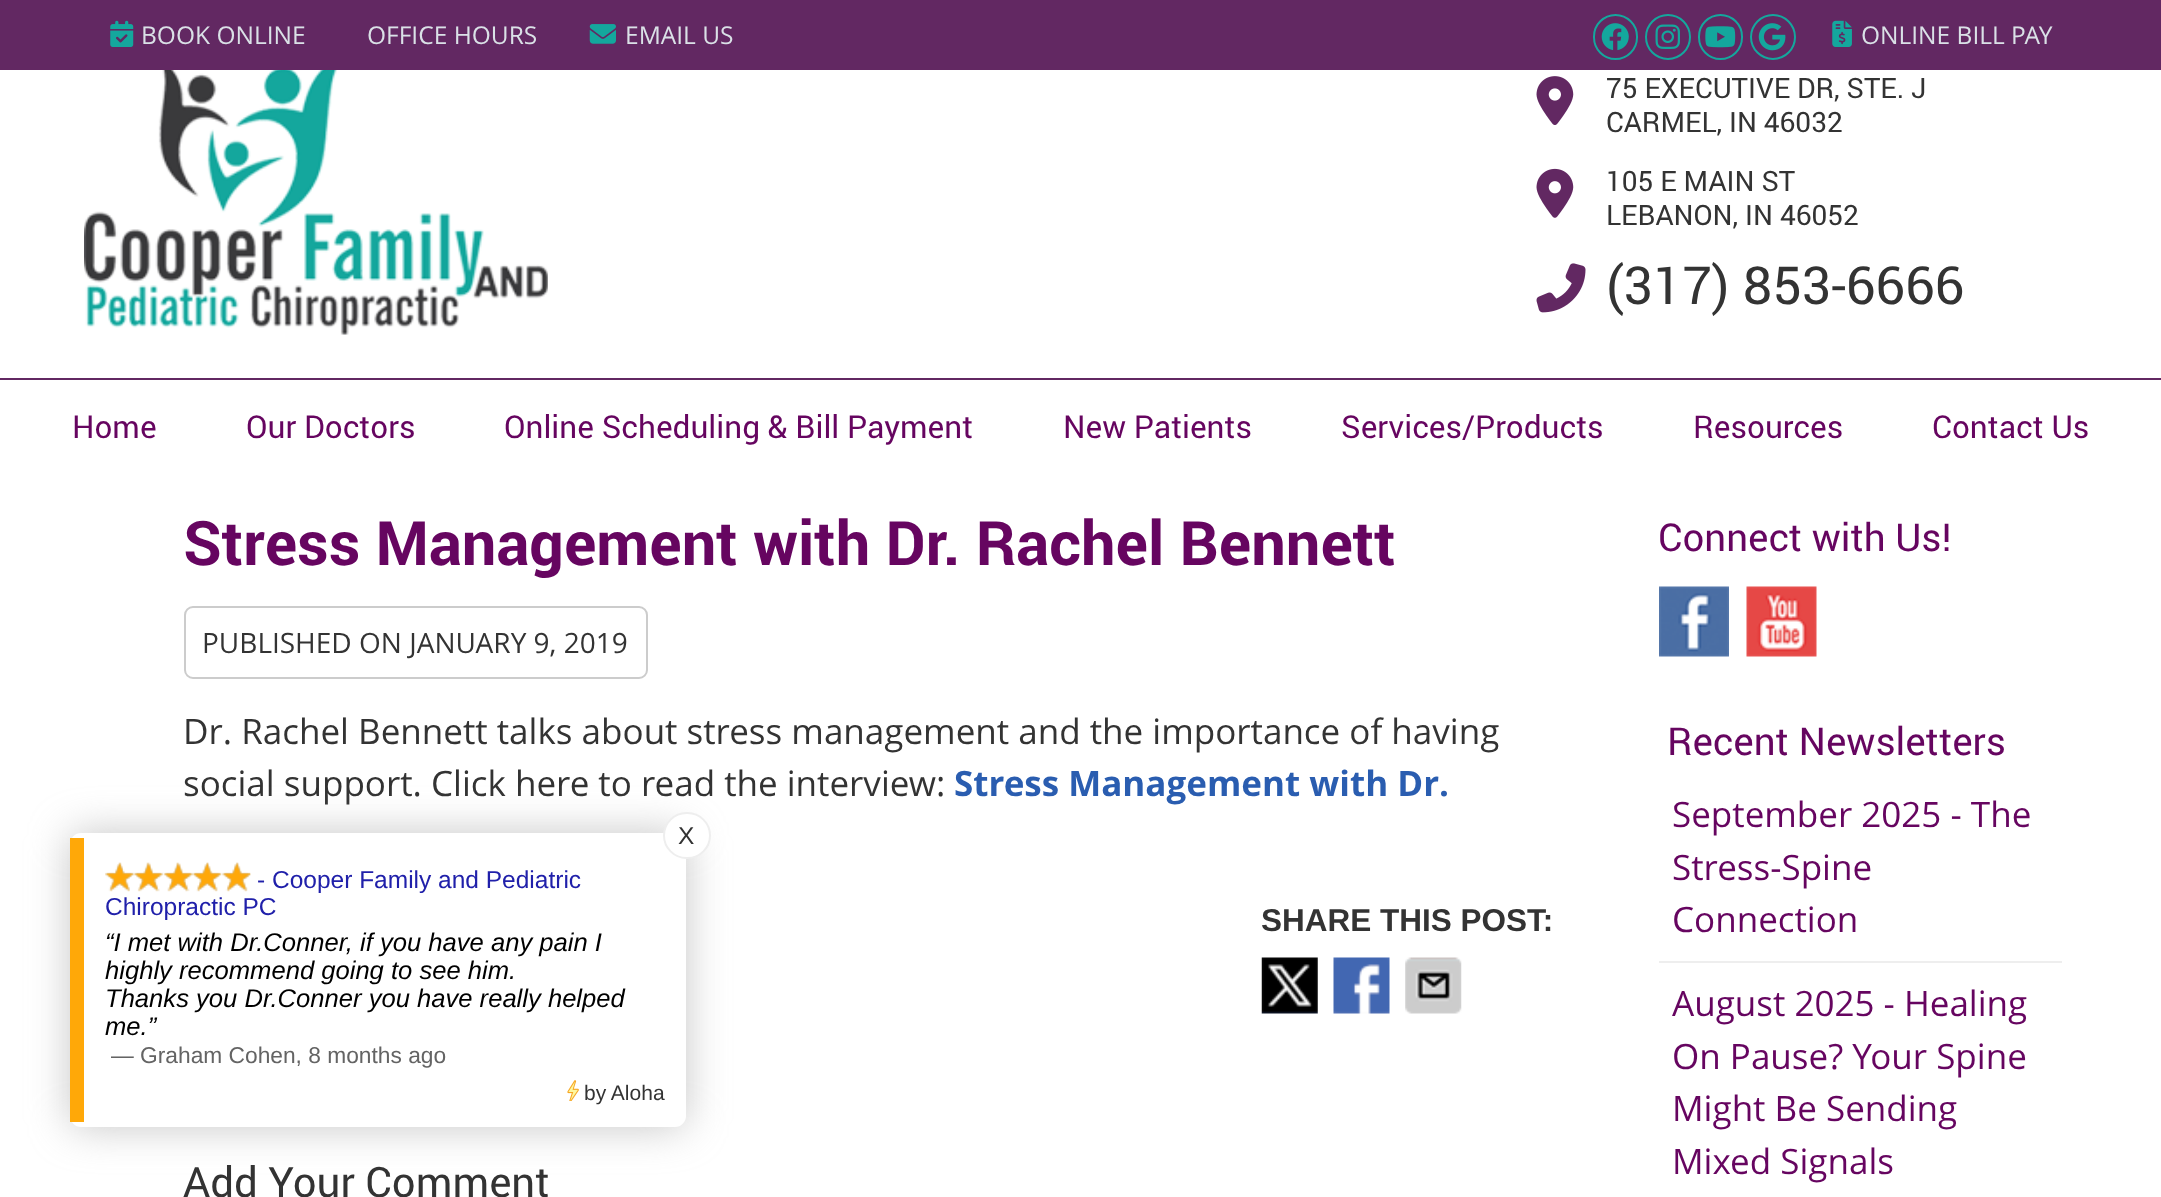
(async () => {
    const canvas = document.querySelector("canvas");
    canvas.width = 2161;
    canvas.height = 1197;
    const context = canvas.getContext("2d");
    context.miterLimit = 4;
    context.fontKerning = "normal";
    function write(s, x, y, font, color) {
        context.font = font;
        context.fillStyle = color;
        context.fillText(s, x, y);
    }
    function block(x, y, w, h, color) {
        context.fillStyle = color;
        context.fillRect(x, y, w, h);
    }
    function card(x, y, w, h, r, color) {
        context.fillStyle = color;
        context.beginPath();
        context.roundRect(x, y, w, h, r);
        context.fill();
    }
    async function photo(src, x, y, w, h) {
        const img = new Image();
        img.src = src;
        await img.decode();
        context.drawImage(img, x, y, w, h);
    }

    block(0, 0, 2161, 1197, "rgb(255, 255, 255)");
    block(0, 0, 2161, 70, "rgb(98, 40, 98)");
    await photo("media/1.png", 110, 20, 24, 27);
    write("BOOK ONLINE", 141, 44, "24.5px Open Sans", "rgb(218, 225, 231)");
    write("OFFICE HOURS", 367, 44, "24.5px Open Sans", "rgb(218, 225, 231)");
    await photo("media/2.png", 589, 24, 27, 20);
    write("EMAIL US", 625, 44, "24.5px Open Sans", "rgb(218, 225, 231)");
    context.beginPath();
    context.roundRect(1594, 15, 43, 44, 21.5);
    context.strokeStyle = "rgb(20, 167, 157)";
    context.lineWidth = 2;
    context.stroke();
    await photo("media/3.png", 1601, 23, 28, 28);
    context.beginPath();
    context.arc(1668, 37, 22, 0, Math.PI * 2);
    context.stroke();
    await photo("media/4.png", 1655, 24, 25, 25);
    context.beginPath();
    context.roundRect(1699, 15, 43, 44, 21.5);
    context.stroke();
    await photo("media/5.png", 1705, 26, 31, 22);
    context.beginPath();
    context.arc(1773, 37, 22, 0, Math.PI * 2);
    context.stroke();
    await photo("media/6.png", 1758, 23, 28, 28);
    await photo("media/7.png", 1832, 20, 20, 27);
    write("ONLINE BILL PAY", 1861, 44, "24.5px Open Sans", "rgb(218, 225, 231)");
    await photo("media/8.png", 84, 70, 464, 265);
    await photo("media/9.png", 1536, 76, 38, 49);
    write("75 EXECUTIVE DR, STE. J", 1606, 98, "28px roboto", "rgb(51, 51, 51)");
    write("CARMEL, IN 46032", 1606, 132, "28px roboto", "rgb(51, 51, 51)");
    await photo("media/10.png", 1536, 168, 38, 50);
    write("105 E MAIN ST", 1606, 191, "28px roboto", "rgb(51, 51, 51)");
    write("LEBANON, IN 46052", 1606, 225, "28px roboto", "rgb(51, 51, 51)");
    await photo("media/11.png", 1536, 263, 50, 50);
    write("(317) 853-6666", 1606, 304, "52.5px roboto", "rgb(51, 51, 51)");
    block(0, 378, 2161, 2, "rgb(98, 40, 98)");
    write("Home", 72, 438, "31.5px roboto", "rgb(102, 5, 96)");
    write("Our Doctors", 246, 438, "31.5px roboto", "rgb(102, 5, 96)");
    write("Online Scheduling & Bill Payment", 504, 438, "31.5px roboto", "rgb(102, 5, 96)");
    write("New Patients", 1063, 438, "31.5px roboto", "rgb(102, 5, 96)");
    write("Services/Products", 1341, 438, "31.5px roboto", "rgb(102, 5, 96)");
    write("Resources", 1693, 438, "31.5px roboto", "rgb(102, 5, 96)");
    write("Contact Us", 1932, 438, "31.5px roboto", "rgb(102, 5, 96)");
    write("Stress Management with Dr. Rachel Bennett", 183, 565, "bold 61.25px roboto", "rgb(102, 5, 96)");
    context.beginPath();
    context.roundRect(185, 607, 462, 71, 8);
    context.strokeStyle = "rgb(204, 204, 204)";
    context.stroke();
    write("PUBLISHED ON JANUARY 9, 2019", 202, 653, "28px Open Sans", "rgb(51, 51, 51)");
    write("Dr. Rachel Bennett talks about stress management and the importance of having", 183, 744, "35px Open Sans", "rgb(51, 51, 51)");
    write("social support. Click here to read the interview:", 183, 796, "35px Open Sans", "rgb(51, 51, 51)");
    write("Stress Management with Dr.", 954, 796, "bold 35px Open Sans", "rgb(42, 93, 176)");
    write("SHARE THIS POST:", 1261, 931, "bold 31.5px Liberation Sans", "rgb(51, 51, 51)");
    await photo("media/12.png", 1261, 957, 57, 57);
    await photo("media/13.png", 1333, 957, 57, 57);
    await photo("media/14.png", 1405, 957, 57, 57);
    write("Add Your Comment", 183, 1197, "42px roboto", "rgb(51, 51, 51)");
    write("Connect with Us!", 1658, 551, "38.5px roboto", "rgb(102, 5, 96)");
    await photo("media/15.png", 1659, 586, 70, 71);
    await photo("media/16.png", 1746, 586, 71, 71);
    write("Recent Newsletters", 1667, 755, "38.5px roboto", "rgb(102, 5, 96)");
    block(1659, 961, 403, 2, "rgb(238, 238, 238)");
    write("September 2025 - The", 1672, 827, "35px Open Sans", "rgb(102, 5, 96)");
    write("Stress-Spine", 1672, 880, "35px Open Sans", "rgb(102, 5, 96)");
    write("Connection", 1672, 932, "35px Open Sans", "rgb(102, 5, 96)");
    write("August 2025 - Healing", 1672, 1016, "35px Open Sans", "rgb(102, 5, 96)");
    write("On Pause? Your Spine", 1672, 1069, "35px Open Sans", "rgb(102, 5, 96)");
    write("Might Be Sending", 1672, 1121, "35px Open Sans", "rgb(102, 5, 96)");
    write("Mixed Signals", 1672, 1174, "35px Open Sans", "rgb(102, 5, 96)");
    context.fillStyle = "rgba(160, 160, 160, 0.6)";
    context.filter = "blur(21px)";
    context.beginPath();
    context.roundRect(70, 833, 616, 294, 11);
    context.fill();
    context.filter = "none";
    card(70, 833, 616, 294, 11, "rgb(255, 255, 255)");
    block(70, 838, 14, 284, "rgb(255, 168, 8)");
    context.fillStyle = "rgb(255, 255, 255)";
    context.beginPath();
    context.roundRect(664, 813, 46, 45, 22.5);
    context.fill();
    context.strokeStyle = "rgb(238, 238, 238)";
    context.stroke();
    write("X", 678, 844, "24.5px Liberation Sans", "rgb(51, 51, 51)");
    await photo("media/17.png", 105, 862, 146, 30);
    await photo("media/18.png", 105, 862, 146, 30);
    write("- Cooper Family and Pediatric", 257, 888, "24.5px Liberation Sans", "rgb(32, 32, 170)");
    write("Chiropractic PC", 105, 915, "24.5px Liberation Sans", "rgb(32, 32, 170)");
    write("“I met with Dr.Conner, if you have any pain I", 105, 951, "italic 25.6px Liberation Sans", "rgb(0, 0, 0)");
    write("highly recommend going to see him.", 105, 979, "italic 25.6px Liberation Sans", "rgb(0, 0, 0)");
    write("Thanks you Dr.Conner you have really helped", 105, 1007, "italic 25.6px Liberation Sans", "rgb(0, 0, 0)");
    write("me.”", 105, 1035, "italic 25.6px Liberation Sans", "rgb(0, 0, 0)");
    write("— Graham Cohen, 8 months ago", 111, 1063, "22.75px Liberation Sans", "rgb(100, 100, 100)");
    await photo("media/19.png", 567, 1080, 12, 21);
    write("by Aloha", 584, 1100, "21px Liberation Sans", "rgb(51, 51, 51)");
})();
